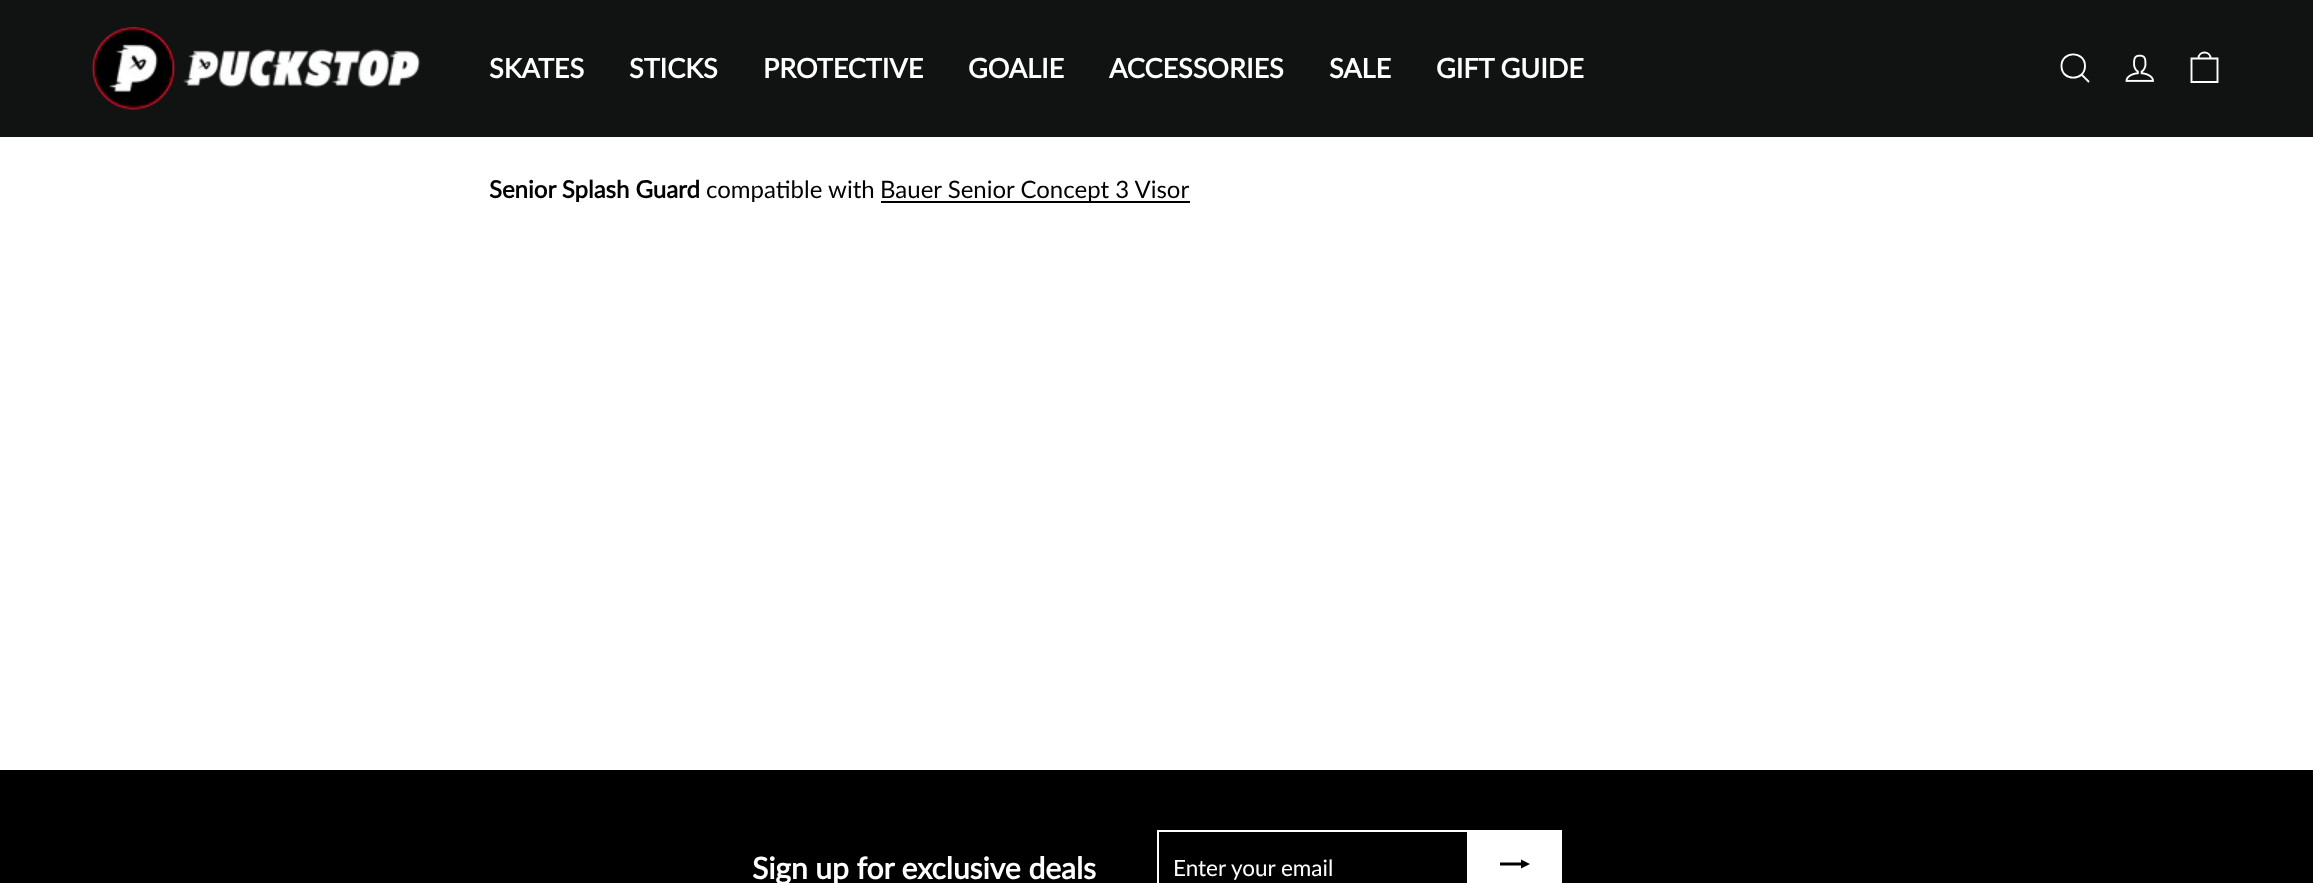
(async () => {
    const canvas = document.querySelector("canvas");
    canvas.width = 2313;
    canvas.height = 883;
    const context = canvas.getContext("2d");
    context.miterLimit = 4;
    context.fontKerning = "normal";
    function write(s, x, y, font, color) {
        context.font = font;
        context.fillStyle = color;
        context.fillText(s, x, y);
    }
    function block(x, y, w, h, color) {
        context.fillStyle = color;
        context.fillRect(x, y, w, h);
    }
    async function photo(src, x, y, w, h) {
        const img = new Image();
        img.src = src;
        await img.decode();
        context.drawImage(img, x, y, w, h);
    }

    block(0, 0, 2313, 883, "rgb(255, 255, 255)");
    block(0, 0, 2313, 137, "rgb(17, 18, 18)");
    await photo("media/1.png", 91, 27, 330, 83);
    write("SKATES", 489, 78, "bold 27px Lato", "rgb(255, 255, 255)");
    write("STICKS", 629, 78, "bold 27px Lato", "rgb(255, 255, 255)");
    write("PROTECTIVE", 763, 78, "bold 27px Lato", "rgb(255, 255, 255)");
    write("GOALIE", 968, 78, "bold 27px Lato", "rgb(255, 255, 255)");
    write("ACCESSORIES", 1109, 78, "bold 27px Lato", "rgb(255, 255, 255)");
    write("SALE", 1329, 78, "bold 27px Lato", "rgb(255, 255, 255)");
    write("GIFT GUIDE", 1436, 78, "bold 27px Lato", "rgb(255, 255, 255)");
    context.beginPath();
    context.moveTo(2085, 66);
    context.bezierCurveTo(2085, 81.5, 2061.5, 81.5, 2061.5, 66);
    context.bezierCurveTo(2061.5, 50.5, 2085, 50.5, 2085, 66);
    context.closePath();
    context.moveTo(2089, 82);
    context.lineTo(2081.5, 74.5);
    context.strokeStyle = "rgb(255, 255, 255)";
    context.lineWidth = 1.9;
    context.stroke();
    await photo("media/2.png", 2125, 54, 29, 28);
    context.beginPath();
    context.moveTo(2198.5, 58.5);
    context.bezierCurveTo(2198.5, 50.5, 2210.5, 50.5, 2210.5, 58.5);
    context.moveTo(2191.5, 58.5);
    context.lineTo(2217.5, 58.5);
    context.lineTo(2217.5, 82);
    context.lineTo(2191.5, 82);
    context.closePath();
    context.stroke();
    write("Senior Splash Guard", 489, 198, "bold 24px Lato", "rgb(0, 0, 0)");
    write("compatible with", 706, 198, "24px Lato", "rgb(0, 0, 0)");
    block(881, 201, 309, 2, "rgb(0, 0, 0)");
    write("Bauer Senior Concept 3 Visor", 880, 198, "24px Lato", "rgb(0, 0, 0)");
    block(0, 770, 2313, 113, "rgb(0, 0, 0)");
    write("Sign up for exclusive deals", 752, 879, "bold 30px Lato", "rgb(255, 255, 255)");
    context.lineWidth = 2;
    context.strokeRect(1158, 831, 310, 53);
    write("Enter your email", 1173, 876, "22.5px Lato", "rgb(255, 255, 255)");
    block(1469, 830, 93, 53, "rgb(255, 255, 255)");
    context.fillStyle = "rgb(0, 0, 0)";
    context.beginPath();
    context.moveTo(1500, 865.5);
    context.lineTo(1500, 862.5);
    context.lineTo(1521, 862.5);
    context.lineTo(1521, 859.5);
    context.lineTo(1530, 864);
    context.lineTo(1521, 868.5);
    context.lineTo(1521, 865.5);
    context.closePath();
    context.fill();
})();
